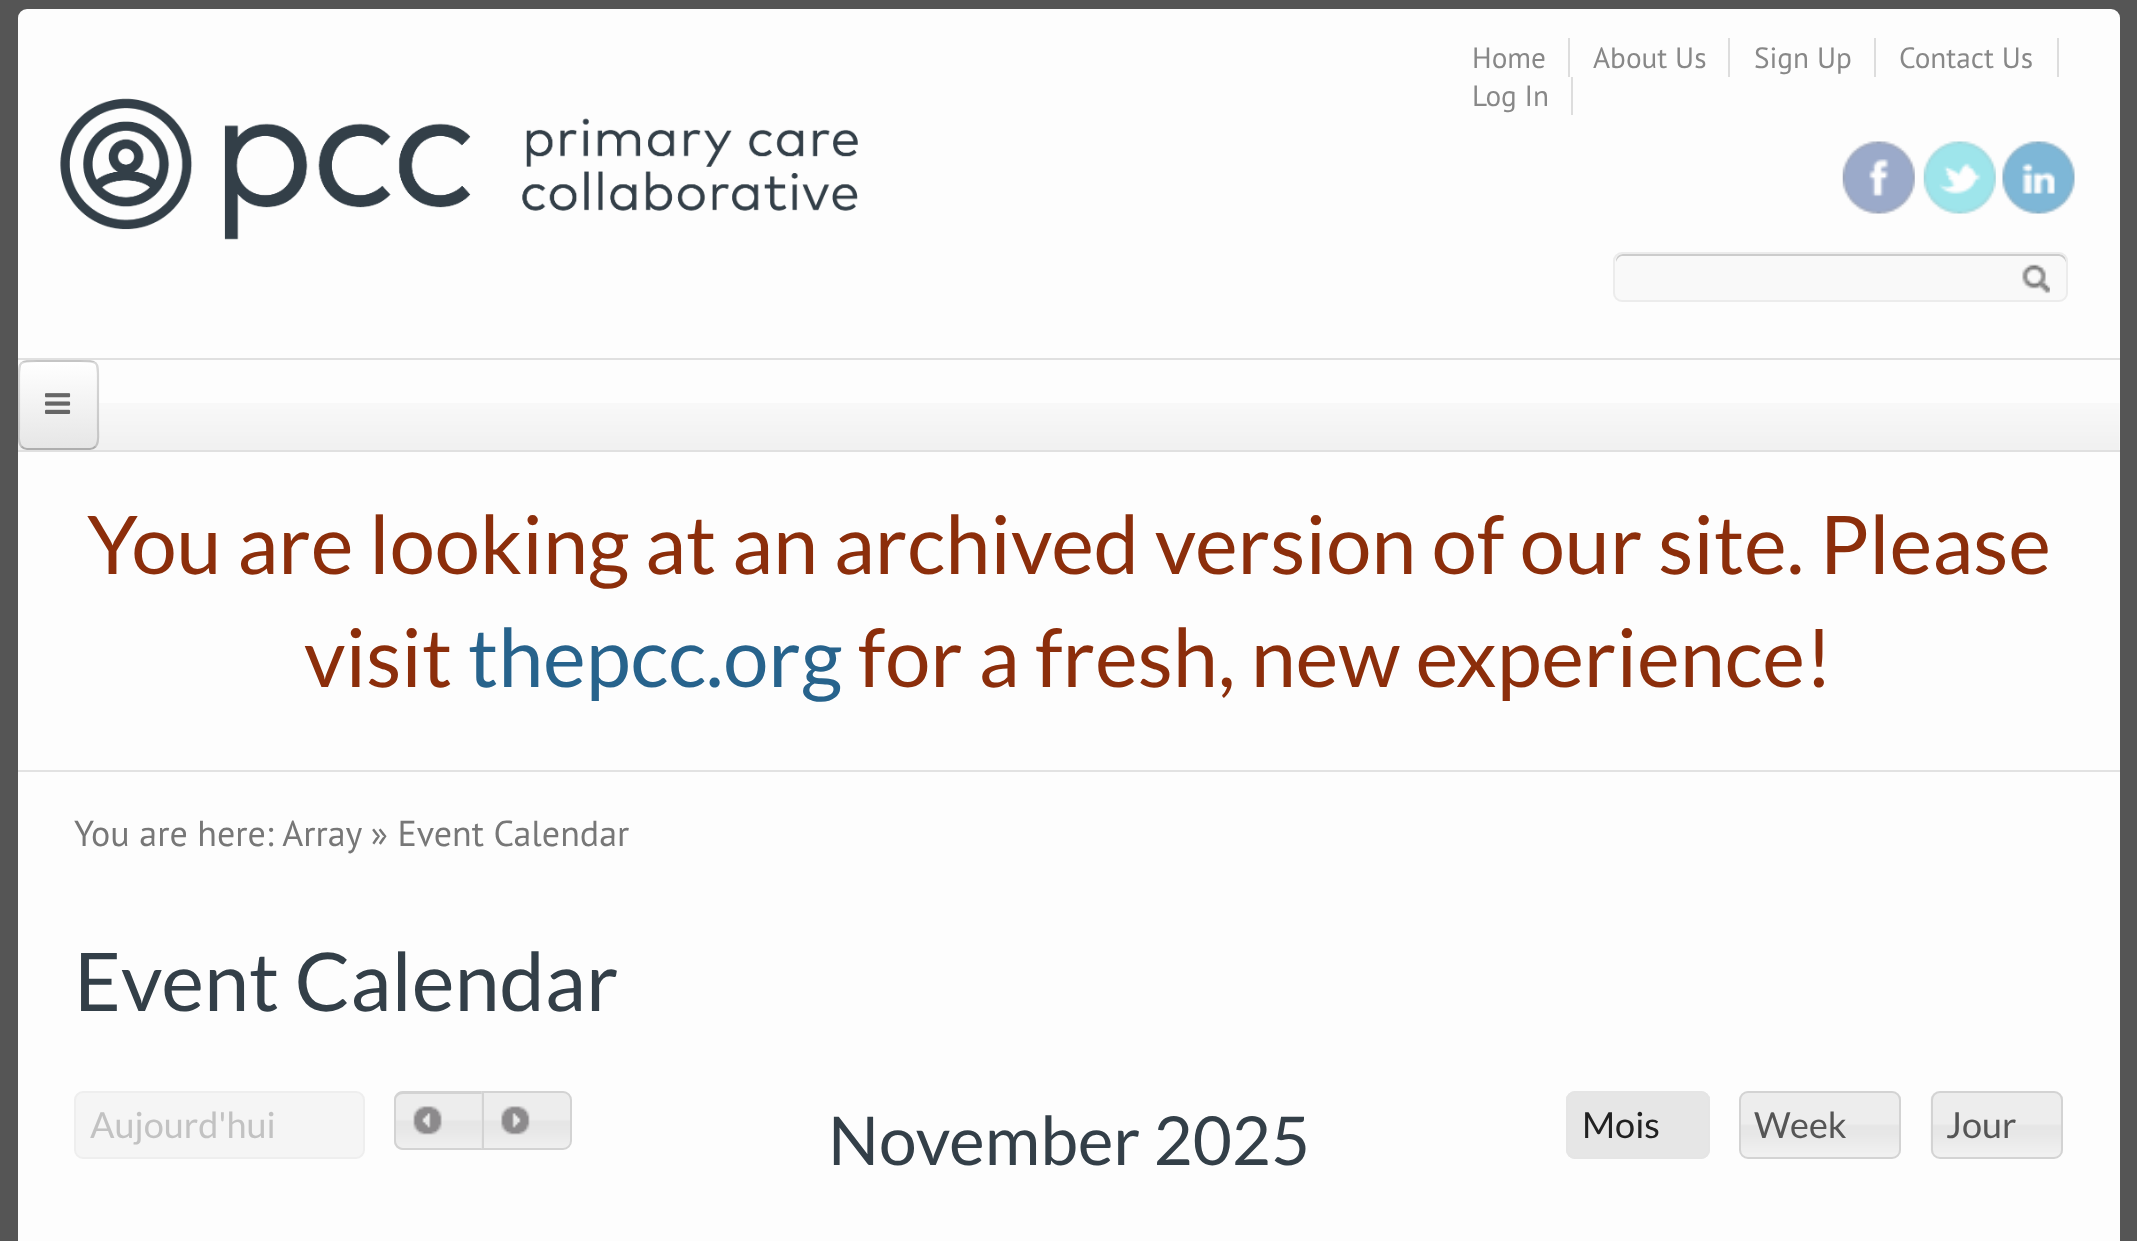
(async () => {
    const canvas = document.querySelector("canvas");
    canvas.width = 2137;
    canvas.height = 1241;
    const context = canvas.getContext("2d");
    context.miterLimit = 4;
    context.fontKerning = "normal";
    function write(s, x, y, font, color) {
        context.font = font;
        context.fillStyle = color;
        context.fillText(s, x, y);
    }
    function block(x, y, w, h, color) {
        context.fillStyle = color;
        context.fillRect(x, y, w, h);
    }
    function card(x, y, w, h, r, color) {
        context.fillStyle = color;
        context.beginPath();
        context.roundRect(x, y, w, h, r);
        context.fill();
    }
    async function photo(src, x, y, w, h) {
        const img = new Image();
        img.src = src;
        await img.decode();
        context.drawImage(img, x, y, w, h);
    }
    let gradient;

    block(0, 0, 2137, 1241, "rgb(85, 85, 85)");
    card(18, 9, 2102, 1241, 9, "rgb(253, 253, 253)");
    block(1568, 38, 2, 39, "rgb(221, 221, 221)");
    write("Home", 1472, 68, "29.25px PT Sans", "rgb(136, 136, 136)");
    block(1728, 38, 2, 39, "rgb(221, 221, 221)");
    write("About Us", 1593, 68, "29.25px PT Sans", "rgb(136, 136, 136)");
    block(1874, 38, 2, 39, "rgb(221, 221, 221)");
    write("Sign Up", 1754, 68, "29.25px PT Sans", "rgb(136, 136, 136)");
    block(2057, 38, 2, 39, "rgb(221, 221, 221)");
    write("Contact Us", 1899, 68, "29.25px PT Sans", "rgb(136, 136, 136)");
    block(1571, 77, 2, 38, "rgb(221, 221, 221)");
    write("Log In", 1472, 106, "29.25px PT Sans", "rgb(136, 136, 136)");
    await photo("media/1.png", 60, 98, 798, 142);
    await photo("media/2.png", 1842, 141, 73, 73);
    await photo("media/3.png", 1923, 141, 73, 73);
    await photo("media/4.png", 2002, 141, 73, 73);
    card(1613, 252, 455, 50, 9, "rgb(249, 249, 249)");
    context.fillStyle = "rgb(204, 204, 204)";
    context.beginPath();
    context.moveTo(1622, 256);
    context.lineTo(2059, 256);
    context.bezierCurveTo(2062, 256, 2066, 260, 2066, 263);
    context.lineTo(2066, 261);
    context.bezierCurveTo(2066, 257, 2063, 254, 2059, 254);
    context.lineTo(1623, 254);
    context.bezierCurveTo(1619, 254, 1616, 257, 1616, 261);
    context.lineTo(1616, 263);
    context.bezierCurveTo(1616, 260, 1619, 256, 1622, 256);
    context.closePath();
    context.fill();
    context.beginPath();
    context.roundRect(1614, 253, 453, 48, 8);
    context.strokeStyle = "rgb(236, 236, 236)";
    context.lineWidth = 2;
    context.stroke();
    await photo("media/5.png", 2022, 264, 28, 30);
    await photo("media/6.png", 18, 403, 2102, 47);
    block(18, 358, 2102, 2, "rgb(224, 224, 224)");
    block(18, 450, 2102, 2, "rgb(224, 224, 224)");
    card(18, 360, 81, 90, 9, "rgb(232, 232, 232)");
    context.save();
    context.beginPath();
    context.roundRect(18, 360, 81, 90, 9);
    context.clip();
    gradient = context.createLinearGradient(58, 362, 59, 448);
    gradient.addColorStop(0, "rgb(255, 255, 255)");
    gradient.addColorStop(1, "rgb(230, 230, 230)");
    context.fillStyle = gradient;
    context.fillRect(18, 362, 81, 86);
    context.restore();
    context.fillStyle = "rgb(255, 255, 255)";
    context.beginPath();
    context.moveTo(27, 364);
    context.lineTo(90, 364);
    context.bezierCurveTo(94, 364, 97, 368, 97, 371);
    context.bezierCurveTo(97, 360, 89, 362, 80, 362);
    context.lineTo(38, 362);
    context.bezierCurveTo(28, 362, 20, 360, 20, 371);
    context.bezierCurveTo(20, 368, 23, 364, 27, 364);
    context.closePath();
    context.fill();
    context.beginPath();
    context.moveTo(95.5, 446.5);
    context.bezierCurveTo(94, 448, 92, 449, 90, 449);
    context.lineTo(27, 449);
    context.bezierCurveTo(25, 449, 23, 448, 21.5, 446.5);
    context.strokeStyle = "rgba(0, 0, 0, 0.25)";
    context.lineWidth = 2.2;
    context.stroke();
    context.beginPath();
    context.moveTo(21.5, 446.5);
    context.bezierCurveTo(17.5, 442.5, 19, 433, 19, 429);
    context.lineTo(19, 381);
    context.bezierCurveTo(19, 361.5, 18, 361, 37.5, 361);
    context.lineTo(79.5, 361);
    context.bezierCurveTo(99, 361, 98, 361.5, 98, 381);
    context.lineTo(98, 429);
    context.bezierCurveTo(98, 433, 99.5, 442.5, 95.5, 446.5);
    context.strokeStyle = "rgba(0, 0, 0, 0.15)";
    context.stroke();
    await photo("media/7.png", 45, 393, 26, 21);
    write("You are looking at an archived version of our site. Please", 87, 574, "81px Lato", "rgb(140, 46, 11)");
    write("visit", 304, 687, "81px Lato", "rgb(140, 46, 11)");
    write("thepcc.org", 468, 687, "81px Lato", "rgb(39, 99, 140)");
    write("for a fresh, new experience!", 858, 687, "81px Lato", "rgb(140, 46, 11)");
    block(18, 770, 2102, 2, "rgb(226, 226, 226)");
    write("You are here: Array » Event Calendar", 74, 846, "36px PT Sans", "rgb(119, 119, 119)");
    write("Event Calendar", 74, 1011, "81px Lato", "rgb(51, 63, 72)");
    context.fillStyle = "rgb(245, 245, 245)";
    context.beginPath();
    context.roundRect(75, 1092, 289, 66, 8);
    context.fill();
    context.strokeStyle = "rgb(238, 238, 238)";
    context.lineWidth = 2;
    context.stroke();
    write("Aujourd'hui", 90, 1138, "36px Lato", "rgb(194, 194, 194)");
    context.fillStyle = "rgb(230, 230, 230)";
    context.beginPath();
    context.roundRect(394, 1091, 88, 59, [9, 0, 0, 9]);
    context.fill();
    await photo("media/8.png", 394, 1091, 87, 58);
    context.fillStyle = "rgb(211, 211, 211)";
    context.beginPath();
    context.moveTo(403, 1091);
    context.lineTo(482, 1091);
    context.lineTo(482, 1150);
    context.lineTo(403, 1150);
    context.bezierCurveTo(398, 1150, 394, 1146, 394, 1141);
    context.lineTo(394, 1100);
    context.bezierCurveTo(394, 1095, 398, 1091, 403, 1091);
    context.closePath();
    context.moveTo(403, 1094);
    context.lineTo(482, 1094);
    context.lineTo(482, 1148);
    context.lineTo(403, 1148);
    context.bezierCurveTo(399, 1148, 396, 1144, 396, 1141);
    context.lineTo(396, 1100);
    context.bezierCurveTo(396, 1097, 399, 1094, 403, 1094);
    context.closePath();
    context.fill("evenodd");
    await photo("media/9.png", 413, 1106, 29, 29);
    await photo("media/10.png", 481, 1091, 90, 58);
    context.beginPath();
    context.roundRect(483, 1092, 88, 57, [0, 8, 8, 0]);
    context.strokeStyle = "rgb(211, 211, 211)";
    context.stroke();
    await photo("media/11.png", 501, 1106, 29, 29);
    write("November 2025", 828, 1165, "67.5px Lato", "rgb(51, 63, 72)");
    card(1566, 1091, 144, 68, 9, "rgb(230, 230, 230)");
    await photo("media/12.png", 1566, 1096, 144, 2);
    context.beginPath();
    context.roundRect(1567, 1092, 142, 66, 8);
    context.strokeStyle = "rgb(229, 229, 229)";
    context.stroke();
    write("Mois", 1582, 1138, "36px Lato", "rgb(33, 33, 33)");
    await photo("media/13.png", 1740, 1091, 161, 67);
    context.beginPath();
    context.roundRect(1740, 1092, 160, 66, 8);
    context.strokeStyle = "rgb(211, 211, 211)";
    context.stroke();
    write("Week", 1754, 1138, "36px Lato", "rgb(85, 85, 85)");
    await photo("media/14.png", 1930, 1091, 133, 67);
    context.beginPath();
    context.roundRect(1932, 1092, 130, 66, 8);
    context.stroke();
    write("Jour", 1946, 1138, "36px Lato", "rgb(85, 85, 85)");
})();
